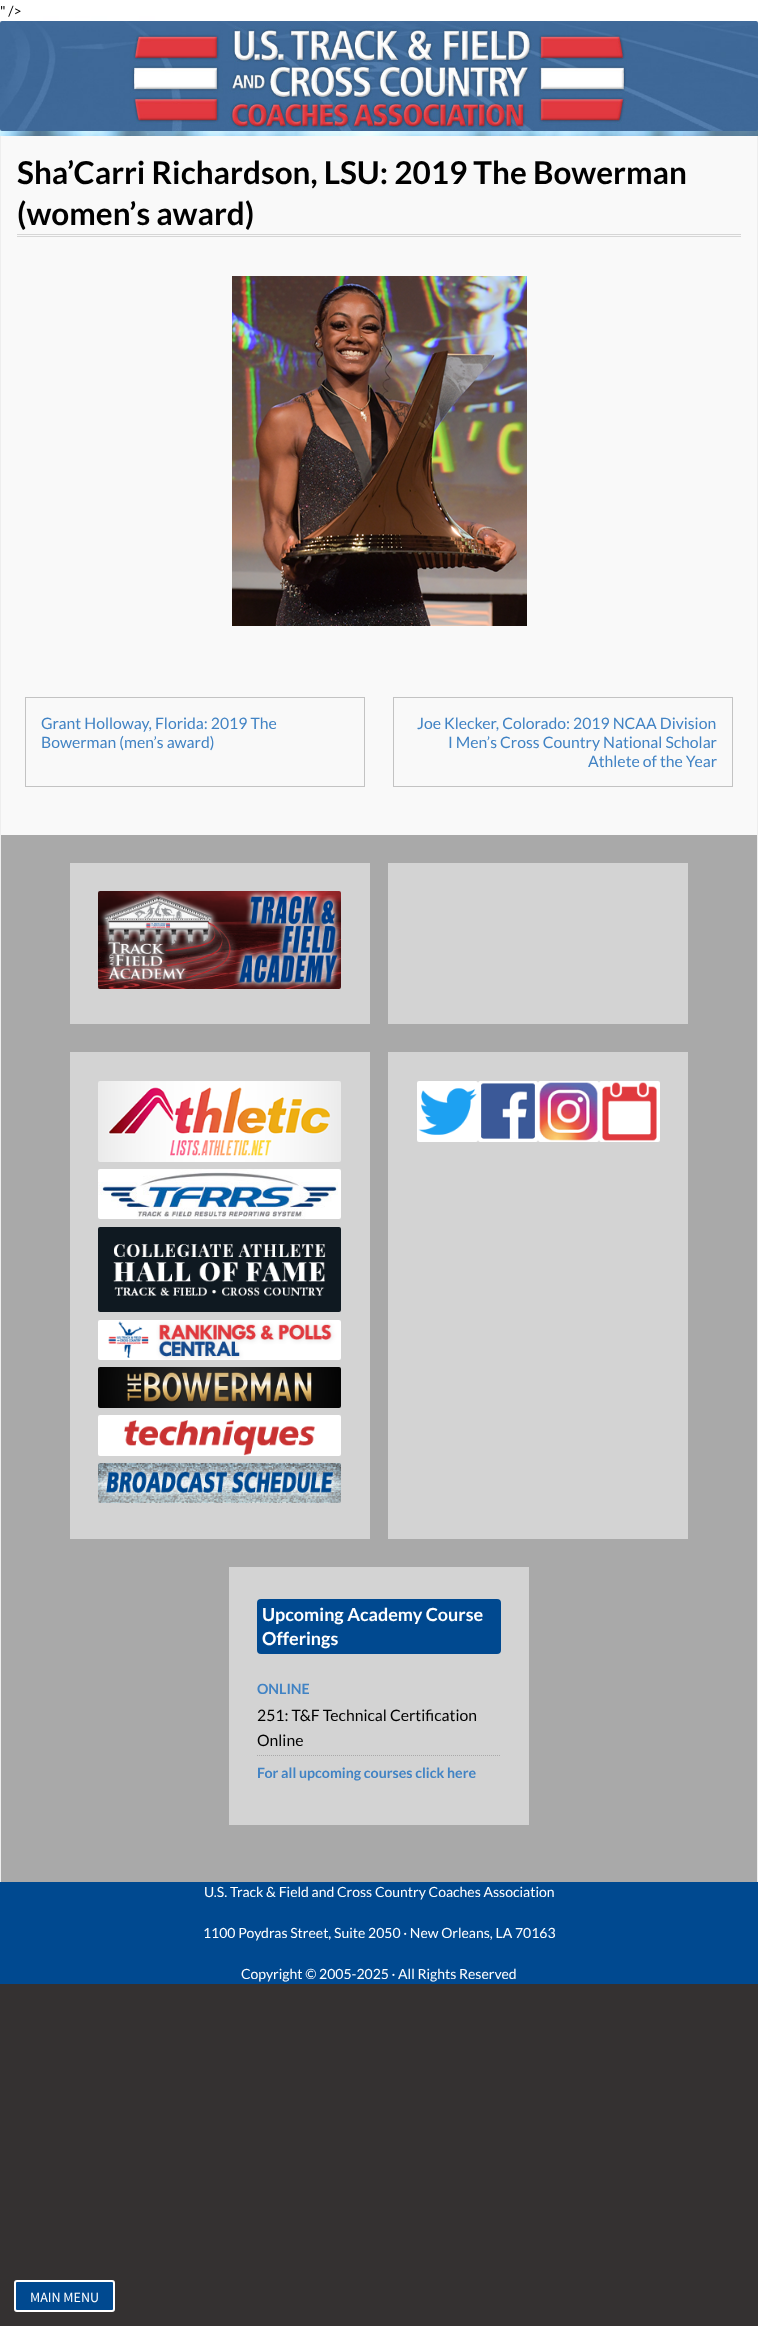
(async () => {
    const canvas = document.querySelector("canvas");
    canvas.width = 758;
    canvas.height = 2326;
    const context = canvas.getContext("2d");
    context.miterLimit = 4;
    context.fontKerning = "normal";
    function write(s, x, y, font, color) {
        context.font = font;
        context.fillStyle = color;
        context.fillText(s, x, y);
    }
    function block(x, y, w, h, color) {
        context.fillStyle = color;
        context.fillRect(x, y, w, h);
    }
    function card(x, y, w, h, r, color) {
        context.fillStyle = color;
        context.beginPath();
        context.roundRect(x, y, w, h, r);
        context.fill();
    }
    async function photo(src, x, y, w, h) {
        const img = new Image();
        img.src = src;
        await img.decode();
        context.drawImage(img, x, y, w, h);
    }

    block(0, 0, 758, 2326, "rgb(52, 49, 49)");
    await photo("media/1.png", 0, 0, 758, 136);
    write("\" />", 0, 16, "14px Lato", "rgb(0, 0, 0)");
    block(1, 136, 756, 699, "rgb(249, 249, 249)");
    block(757, 136, 1, 1746, "rgb(238, 238, 238)");
    block(0, 136, 1, 1746, "rgb(238, 238, 238)");
    block(17, 234, 724, 1, "rgb(214, 214, 214)");
    block(17, 236, 724, 1, "rgb(214, 214, 214)");
    write("Sha’Carri Richardson, LSU: 2019 The Bowerman", 17, 184, "bold 31.5px Lato", "rgb(0, 0, 0)");
    write("(women’s award)", 17, 225, "bold 31.5px Lato", "rgb(0, 0, 0)");
    await photo("media/2.png", 232, 276, 295, 350);
    context.strokeStyle = "rgb(195, 195, 195)";
    context.strokeRect(25.5, 697.5, 339, 89);
    write("Grant Holloway, Florida: 2019 The", 41, 729, "15.75px Lato", "rgb(65, 131, 196)");
    write("Bowerman (men’s award)", 41, 748, "15.75px Lato", "rgb(65, 131, 196)");
    context.strokeRect(393.5, 697.5, 339, 89);
    write("Joe Klecker, Colorado: 2019 NCAA Division", 417, 729, "15.75px Lato", "rgb(65, 131, 196)");
    write("I Men’s Cross Country National Scholar", 448, 748, "15.75px Lato", "rgb(65, 131, 196)");
    write("Athlete of the Year", 588, 767, "15.75px Lato", "rgb(65, 131, 196)");
    block(1, 835, 756, 1047, "rgb(169, 169, 169)");
    block(70, 863, 300, 161, "rgb(211, 211, 211)");
    await photo("media/3.png", 98, 891, 243, 98);
    block(388, 863, 300, 161, "rgb(211, 211, 211)");
    block(70, 1052, 300, 487, "rgb(211, 211, 211)");
    await photo("media/4.png", 98, 1081, 243, 81);
    await photo("media/5.png", 98, 1169, 243, 50);
    await photo("media/6.png", 98, 1227, 243, 85);
    await photo("media/7.png", 98, 1320, 243, 40);
    await photo("media/8.png", 98, 1367, 243, 41);
    await photo("media/9.png", 98, 1415, 243, 41);
    await photo("media/10.png", 98, 1463, 243, 40);
    block(388, 1052, 300, 487, "rgb(211, 211, 211)");
    await photo("media/11.png", 417, 1081, 61, 61);
    await photo("media/12.png", 478, 1081, 60, 61);
    await photo("media/13.png", 538, 1081, 61, 61);
    await photo("media/14.png", 599, 1081, 61, 61);
    block(229, 1567, 300, 258, "rgb(211, 211, 211)");
    card(257, 1599, 244, 55, 4, "rgb(0, 73, 144)");
    write("Upcoming Academy Course", 262, 1621, "bold 18px Lato", "rgb(255, 255, 255)");
    write("Offerings", 262, 1645, "bold 18px Lato", "rgb(255, 255, 255)");
    context.beginPath();
    context.moveTo(257, 1755.5);
    context.lineTo(501, 1755.5);
    context.strokeStyle = "rgb(169, 169, 169)";
    context.setLineDash([1, 1]);
    context.stroke();
    write("ONLINE", 257, 1694, "bold 14.2px Lato", "rgb(65, 131, 196)");
    write("251: T&F Technical Certification", 257, 1721, "15.75px Lato", "rgb(0, 0, 0)");
    write("Online", 257, 1746, "15.75px Lato", "rgb(0, 0, 0)");
    write("For all upcoming courses click here", 257, 1778, "bold 14.2px Lato", "rgb(65, 131, 196)");
    block(0, 1882, 758, 102, "rgb(0, 73, 144)");
    write("U.S. Track & Field and Cross Country Coaches Association", 204, 1897, "14px Lato", "rgb(255, 255, 255)");
    write("1100 Poydras Street, Suite 2050 · New Orleans, LA 70163", 203, 1938, "14px Lato", "rgb(255, 255, 255)");
    write("Copyright © 2005-2025 · All Rights Reserved", 241, 1979, "14px Lato", "rgb(255, 255, 255)");
    await photo("media/15.png", 0, 21, 758, 110);
    context.fillStyle = "rgb(0, 73, 144)";
    context.beginPath();
    context.roundRect(15, 2281, 99, 30, 2);
    context.fill();
    context.strokeStyle = "rgb(255, 255, 255)";
    context.lineWidth = 2;
    context.setLineDash([]);
    context.stroke();
    write("MAIN MENU", 30, 2302, "14px Source Sans Pro", "rgb(255, 255, 255)");
})();
